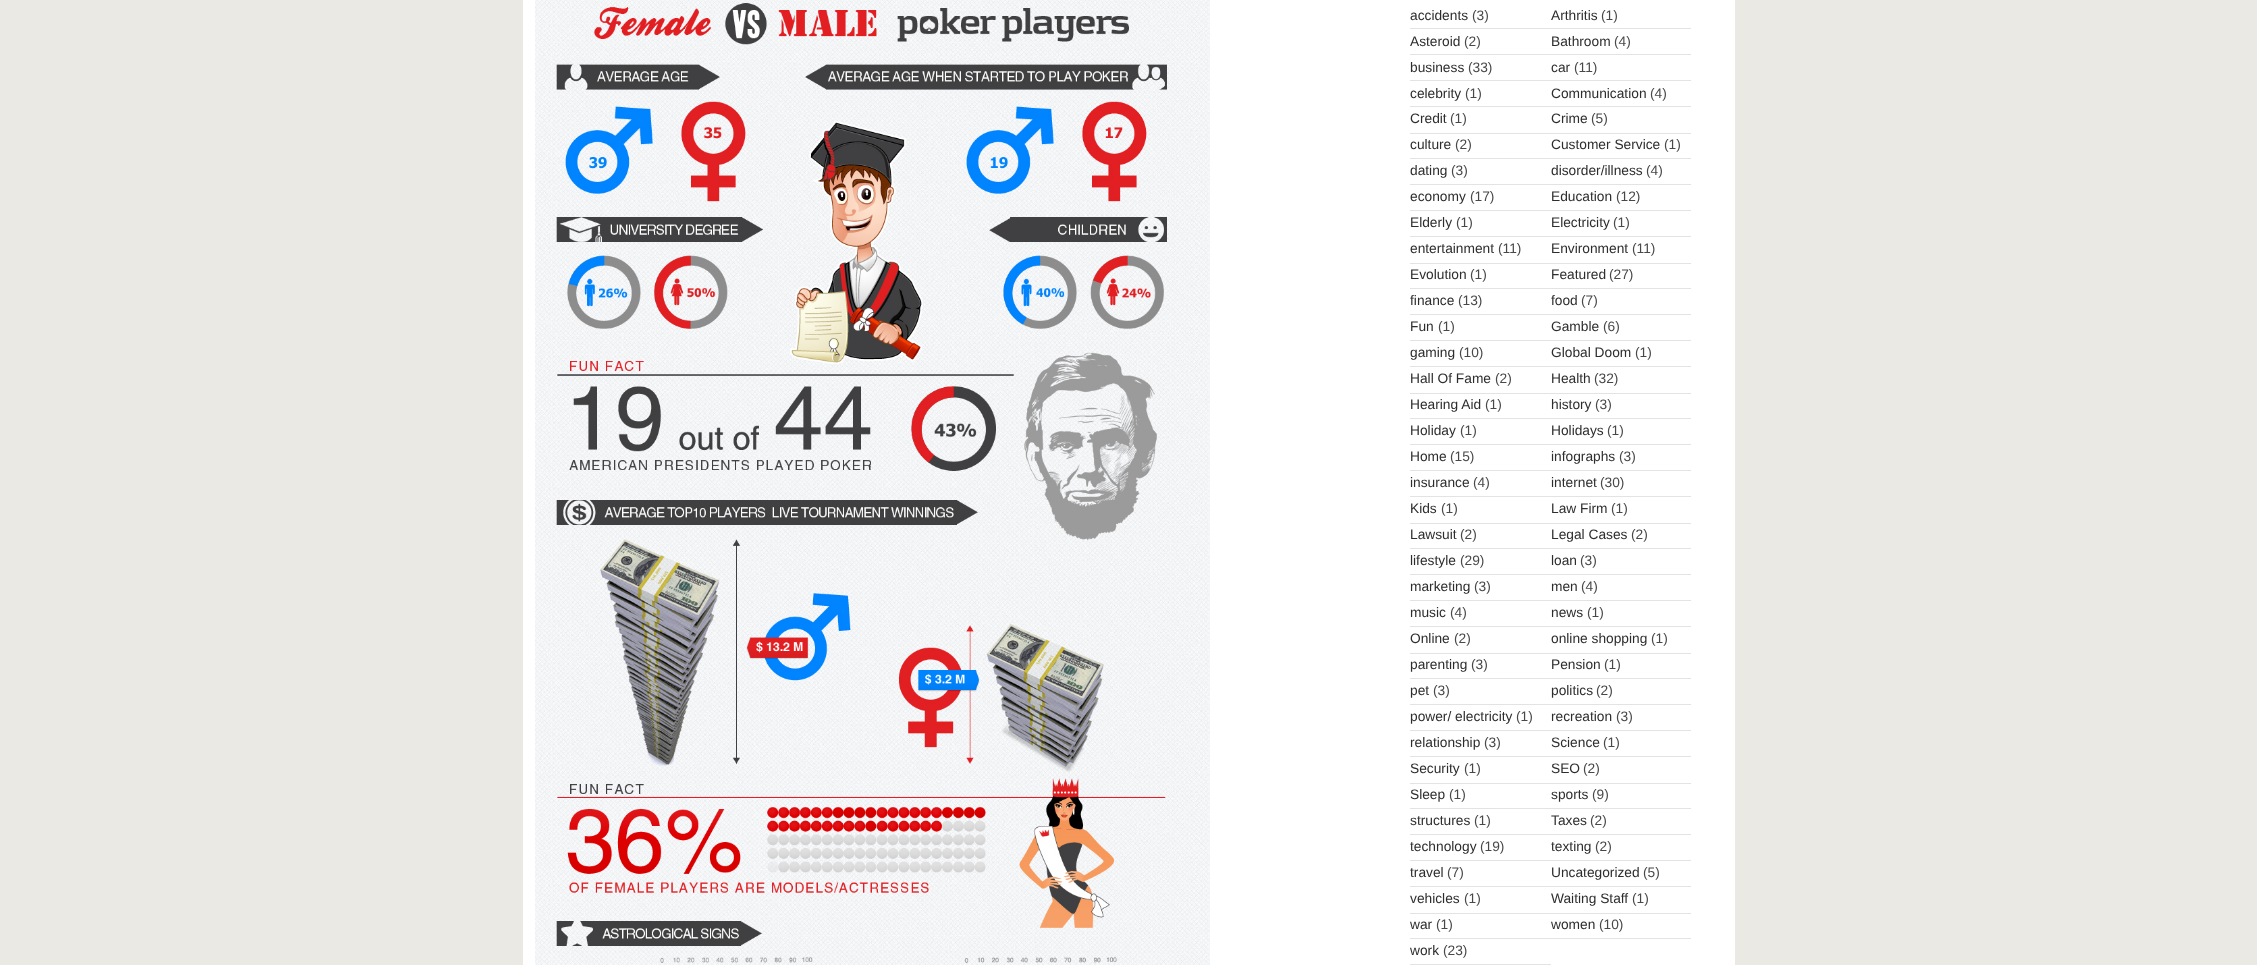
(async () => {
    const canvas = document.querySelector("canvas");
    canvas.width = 2257;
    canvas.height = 965;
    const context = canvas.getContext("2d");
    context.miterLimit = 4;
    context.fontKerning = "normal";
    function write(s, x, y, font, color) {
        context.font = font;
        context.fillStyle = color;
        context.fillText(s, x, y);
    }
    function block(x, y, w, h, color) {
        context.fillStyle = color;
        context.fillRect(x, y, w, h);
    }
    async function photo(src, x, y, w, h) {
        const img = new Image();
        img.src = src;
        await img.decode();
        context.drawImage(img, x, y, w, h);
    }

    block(0, 0, 2257, 965, "rgb(234, 233, 228)");
    block(523, 0, 1212, 965, "rgb(255, 255, 255)");
    await photo("media/1.png", 535, 0, 675, 965);
    block(1410, 28, 281, 1, "rgb(227, 227, 227)");
    write("accidents", 1410, 20, "13.75px Liberation Sans", "rgb(45, 45, 45)");
    write("(3)", 1472, 20, "13.75px Liberation Sans", "rgb(72, 72, 72)");
    write("Arthritis", 1551, 20, "13.75px Liberation Sans", "rgb(45, 45, 45)");
    write("(1)", 1601, 20, "13.75px Liberation Sans", "rgb(72, 72, 72)");
    block(1410, 54, 281, 1, "rgb(227, 227, 227)");
    write("Asteroid", 1410, 46, "13.75px Liberation Sans", "rgb(45, 45, 45)");
    write("(2)", 1464, 46, "13.75px Liberation Sans", "rgb(72, 72, 72)");
    write("Bathroom", 1551, 46, "13.75px Liberation Sans", "rgb(45, 45, 45)");
    write("(4)", 1614, 46, "13.75px Liberation Sans", "rgb(72, 72, 72)");
    block(1410, 80, 281, 1, "rgb(227, 227, 227)");
    write("business", 1410, 72, "13.75px Liberation Sans", "rgb(45, 45, 45)");
    write("(33)", 1468, 72, "13.75px Liberation Sans", "rgb(72, 72, 72)");
    write("car", 1551, 72, "13.75px Liberation Sans", "rgb(45, 45, 45)");
    write("(11)", 1574, 72, "13.75px Liberation Sans", "rgb(72, 72, 72)");
    block(1410, 106, 281, 1, "rgb(227, 227, 227)");
    write("celebrity", 1410, 98, "13.75px Liberation Sans", "rgb(45, 45, 45)");
    write("(1)", 1465, 98, "13.75px Liberation Sans", "rgb(72, 72, 72)");
    write("Communication", 1551, 98, "13.75px Liberation Sans", "rgb(45, 45, 45)");
    write("(4)", 1650, 98, "13.75px Liberation Sans", "rgb(72, 72, 72)");
    block(1410, 133, 281, 1, "rgb(227, 227, 227)");
    write("Credit", 1410, 123, "13.75px Liberation Sans", "rgb(45, 45, 45)");
    write("(1)", 1450, 123, "13.75px Liberation Sans", "rgb(72, 72, 72)");
    write("Crime", 1551, 123, "13.75px Liberation Sans", "rgb(45, 45, 45)");
    write("(5)", 1591, 123, "13.75px Liberation Sans", "rgb(72, 72, 72)");
    block(1410, 158, 281, 1, "rgb(227, 227, 227)");
    write("culture", 1410, 149, "13.75px Liberation Sans", "rgb(45, 45, 45)");
    write("(2)", 1455, 149, "13.75px Liberation Sans", "rgb(72, 72, 72)");
    write("Customer Service", 1551, 149, "13.75px Liberation Sans", "rgb(45, 45, 45)");
    write("(1)", 1664, 149, "13.75px Liberation Sans", "rgb(72, 72, 72)");
    block(1410, 184, 281, 1, "rgb(227, 227, 227)");
    write("dating", 1410, 175, "13.75px Liberation Sans", "rgb(45, 45, 45)");
    write("(3)", 1451, 175, "13.75px Liberation Sans", "rgb(72, 72, 72)");
    write("disorder/illness", 1551, 175, "13.75px Liberation Sans", "rgb(45, 45, 45)");
    write("(4)", 1646, 175, "13.75px Liberation Sans", "rgb(72, 72, 72)");
    block(1410, 210, 281, 1, "rgb(227, 227, 227)");
    write("economy", 1410, 201, "13.75px Liberation Sans", "rgb(45, 45, 45)");
    write("(17)", 1470, 201, "13.75px Liberation Sans", "rgb(72, 72, 72)");
    write("Education", 1551, 201, "13.75px Liberation Sans", "rgb(45, 45, 45)");
    write("(12)", 1616, 201, "13.75px Liberation Sans", "rgb(72, 72, 72)");
    block(1410, 236, 281, 1, "rgb(227, 227, 227)");
    write("Elderly", 1410, 227, "13.75px Liberation Sans", "rgb(45, 45, 45)");
    write("(1)", 1456, 227, "13.75px Liberation Sans", "rgb(72, 72, 72)");
    write("Electricity", 1551, 227, "13.75px Liberation Sans", "rgb(45, 45, 45)");
    write("(1)", 1613, 227, "13.75px Liberation Sans", "rgb(72, 72, 72)");
    block(1410, 263, 281, 1, "rgb(227, 227, 227)");
    write("entertainment", 1410, 253, "13.75px Liberation Sans", "rgb(45, 45, 45)");
    write("(11)", 1498, 253, "13.75px Liberation Sans", "rgb(72, 72, 72)");
    write("Environment", 1551, 253, "13.75px Liberation Sans", "rgb(45, 45, 45)");
    write("(11)", 1632, 253, "13.75px Liberation Sans", "rgb(72, 72, 72)");
    block(1410, 288, 281, 1, "rgb(227, 227, 227)");
    write("Evolution", 1410, 279, "13.75px Liberation Sans", "rgb(45, 45, 45)");
    write("(1)", 1470, 279, "13.75px Liberation Sans", "rgb(72, 72, 72)");
    write("Featured", 1551, 279, "13.75px Liberation Sans", "rgb(45, 45, 45)");
    write("(27)", 1609, 279, "13.75px Liberation Sans", "rgb(72, 72, 72)");
    block(1410, 314, 281, 1, "rgb(227, 227, 227)");
    write("finance", 1410, 305, "13.75px Liberation Sans", "rgb(45, 45, 45)");
    write("(13)", 1458, 305, "13.75px Liberation Sans", "rgb(72, 72, 72)");
    write("food", 1551, 305, "13.75px Liberation Sans", "rgb(45, 45, 45)");
    write("(7)", 1581, 305, "13.75px Liberation Sans", "rgb(72, 72, 72)");
    block(1410, 340, 281, 1, "rgb(227, 227, 227)");
    write("Fun", 1410, 331, "13.75px Liberation Sans", "rgb(45, 45, 45)");
    write("(1)", 1438, 331, "13.75px Liberation Sans", "rgb(72, 72, 72)");
    write("Gamble", 1551, 331, "13.75px Liberation Sans", "rgb(45, 45, 45)");
    write("(6)", 1603, 331, "13.75px Liberation Sans", "rgb(72, 72, 72)");
    block(1410, 366, 281, 1, "rgb(227, 227, 227)");
    write("gaming", 1410, 357, "13.75px Liberation Sans", "rgb(45, 45, 45)");
    write("(10)", 1459, 357, "13.75px Liberation Sans", "rgb(72, 72, 72)");
    write("Global Doom", 1551, 357, "13.75px Liberation Sans", "rgb(45, 45, 45)");
    write("(1)", 1635, 357, "13.75px Liberation Sans", "rgb(72, 72, 72)");
    block(1410, 393, 281, 1, "rgb(227, 227, 227)");
    write("Hall Of Fame", 1410, 383, "13.75px Liberation Sans", "rgb(45, 45, 45)");
    write("(2)", 1495, 383, "13.75px Liberation Sans", "rgb(72, 72, 72)");
    write("Health", 1551, 383, "13.75px Liberation Sans", "rgb(45, 45, 45)");
    write("(32)", 1594, 383, "13.75px Liberation Sans", "rgb(72, 72, 72)");
    block(1410, 418, 281, 1, "rgb(227, 227, 227)");
    write("Hearing Aid", 1410, 409, "13.75px Liberation Sans", "rgb(45, 45, 45)");
    write("(1)", 1485, 409, "13.75px Liberation Sans", "rgb(72, 72, 72)");
    write("history", 1551, 409, "13.75px Liberation Sans", "rgb(45, 45, 45)");
    write("(3)", 1595, 409, "13.75px Liberation Sans", "rgb(72, 72, 72)");
    block(1410, 444, 281, 1, "rgb(227, 227, 227)");
    write("Holiday", 1410, 435, "13.75px Liberation Sans", "rgb(45, 45, 45)");
    write("(1)", 1460, 435, "13.75px Liberation Sans", "rgb(72, 72, 72)");
    write("Holidays", 1551, 435, "13.75px Liberation Sans", "rgb(45, 45, 45)");
    write("(1)", 1607, 435, "13.75px Liberation Sans", "rgb(72, 72, 72)");
    block(1410, 470, 281, 1, "rgb(227, 227, 227)");
    write("Home", 1410, 461, "13.75px Liberation Sans", "rgb(45, 45, 45)");
    write("(15)", 1450, 461, "13.75px Liberation Sans", "rgb(72, 72, 72)");
    write("infographs", 1551, 461, "13.75px Liberation Sans", "rgb(45, 45, 45)");
    write("(3)", 1619, 461, "13.75px Liberation Sans", "rgb(72, 72, 72)");
    block(1410, 496, 281, 1, "rgb(227, 227, 227)");
    write("insurance", 1410, 487, "13.75px Liberation Sans", "rgb(45, 45, 45)");
    write("(4)", 1473, 487, "13.75px Liberation Sans", "rgb(72, 72, 72)");
    write("internet", 1551, 487, "13.75px Liberation Sans", "rgb(45, 45, 45)");
    write("(30)", 1600, 487, "13.75px Liberation Sans", "rgb(72, 72, 72)");
    block(1410, 523, 281, 1, "rgb(227, 227, 227)");
    write("Kids", 1410, 513, "13.75px Liberation Sans", "rgb(45, 45, 45)");
    write("(1)", 1441, 513, "13.75px Liberation Sans", "rgb(72, 72, 72)");
    write("Law Firm", 1551, 513, "13.75px Liberation Sans", "rgb(45, 45, 45)");
    write("(1)", 1611, 513, "13.75px Liberation Sans", "rgb(72, 72, 72)");
    block(1410, 548, 281, 1, "rgb(227, 227, 227)");
    write("Lawsuit", 1410, 539, "13.75px Liberation Sans", "rgb(45, 45, 45)");
    write("(2)", 1460, 539, "13.75px Liberation Sans", "rgb(72, 72, 72)");
    write("Legal Cases", 1551, 539, "13.75px Liberation Sans", "rgb(45, 45, 45)");
    write("(2)", 1631, 539, "13.75px Liberation Sans", "rgb(72, 72, 72)");
    block(1410, 574, 281, 1, "rgb(227, 227, 227)");
    write("lifestyle", 1410, 565, "13.75px Liberation Sans", "rgb(45, 45, 45)");
    write("(29)", 1460, 565, "13.75px Liberation Sans", "rgb(72, 72, 72)");
    write("loan", 1551, 565, "13.75px Liberation Sans", "rgb(45, 45, 45)");
    write("(3)", 1580, 565, "13.75px Liberation Sans", "rgb(72, 72, 72)");
    block(1410, 600, 281, 1, "rgb(227, 227, 227)");
    write("marketing", 1410, 591, "13.75px Liberation Sans", "rgb(45, 45, 45)");
    write("(3)", 1474, 591, "13.75px Liberation Sans", "rgb(72, 72, 72)");
    write("men", 1551, 591, "13.75px Liberation Sans", "rgb(45, 45, 45)");
    write("(4)", 1581, 591, "13.75px Liberation Sans", "rgb(72, 72, 72)");
    block(1410, 626, 281, 1, "rgb(227, 227, 227)");
    write("music", 1410, 617, "13.75px Liberation Sans", "rgb(45, 45, 45)");
    write("(4)", 1450, 617, "13.75px Liberation Sans", "rgb(72, 72, 72)");
    write("news", 1551, 617, "13.75px Liberation Sans", "rgb(45, 45, 45)");
    write("(1)", 1587, 617, "13.75px Liberation Sans", "rgb(72, 72, 72)");
    block(1410, 653, 281, 1, "rgb(227, 227, 227)");
    write("Online", 1410, 643, "13.75px Liberation Sans", "rgb(45, 45, 45)");
    write("(2)", 1454, 643, "13.75px Liberation Sans", "rgb(72, 72, 72)");
    write("online shopping", 1551, 643, "13.75px Liberation Sans", "rgb(45, 45, 45)");
    write("(1)", 1651, 643, "13.75px Liberation Sans", "rgb(72, 72, 72)");
    block(1410, 678, 281, 1, "rgb(227, 227, 227)");
    write("parenting", 1410, 669, "13.75px Liberation Sans", "rgb(45, 45, 45)");
    write("(3)", 1471, 669, "13.75px Liberation Sans", "rgb(72, 72, 72)");
    write("Pension", 1551, 669, "13.75px Liberation Sans", "rgb(45, 45, 45)");
    write("(1)", 1604, 669, "13.75px Liberation Sans", "rgb(72, 72, 72)");
    block(1410, 704, 281, 1, "rgb(227, 227, 227)");
    write("pet", 1410, 695, "13.75px Liberation Sans", "rgb(45, 45, 45)");
    write("(3)", 1433, 695, "13.75px Liberation Sans", "rgb(72, 72, 72)");
    write("politics", 1551, 695, "13.75px Liberation Sans", "rgb(45, 45, 45)");
    write("(2)", 1596, 695, "13.75px Liberation Sans", "rgb(72, 72, 72)");
    block(1410, 730, 281, 1, "rgb(227, 227, 227)");
    write("power/ electricity", 1410, 721, "13.75px Liberation Sans", "rgb(45, 45, 45)");
    write("(1)", 1516, 721, "13.75px Liberation Sans", "rgb(72, 72, 72)");
    write("recreation", 1551, 721, "13.75px Liberation Sans", "rgb(45, 45, 45)");
    write("(3)", 1616, 721, "13.75px Liberation Sans", "rgb(72, 72, 72)");
    block(1410, 756, 281, 1, "rgb(227, 227, 227)");
    write("relationship", 1410, 747, "13.75px Liberation Sans", "rgb(45, 45, 45)");
    write("(3)", 1484, 747, "13.75px Liberation Sans", "rgb(72, 72, 72)");
    write("Science", 1551, 747, "13.75px Liberation Sans", "rgb(45, 45, 45)");
    write("(1)", 1603, 747, "13.75px Liberation Sans", "rgb(72, 72, 72)");
    block(1410, 783, 281, 1, "rgb(227, 227, 227)");
    write("Security", 1410, 773, "13.75px Liberation Sans", "rgb(45, 45, 45)");
    write("(1)", 1464, 773, "13.75px Liberation Sans", "rgb(72, 72, 72)");
    write("SEO", 1551, 773, "13.75px Liberation Sans", "rgb(45, 45, 45)");
    write("(2)", 1583, 773, "13.75px Liberation Sans", "rgb(72, 72, 72)");
    block(1410, 808, 281, 1, "rgb(227, 227, 227)");
    write("Sleep", 1410, 799, "13.75px Liberation Sans", "rgb(45, 45, 45)");
    write("(1)", 1449, 799, "13.75px Liberation Sans", "rgb(72, 72, 72)");
    write("sports", 1551, 799, "13.75px Liberation Sans", "rgb(45, 45, 45)");
    write("(9)", 1592, 799, "13.75px Liberation Sans", "rgb(72, 72, 72)");
    block(1410, 834, 281, 1, "rgb(227, 227, 227)");
    write("structures", 1410, 825, "13.75px Liberation Sans", "rgb(45, 45, 45)");
    write("(1)", 1474, 825, "13.75px Liberation Sans", "rgb(72, 72, 72)");
    write("Taxes", 1551, 825, "13.75px Liberation Sans", "rgb(45, 45, 45)");
    write("(2)", 1590, 825, "13.75px Liberation Sans", "rgb(72, 72, 72)");
    block(1410, 860, 281, 1, "rgb(227, 227, 227)");
    write("technology", 1410, 851, "13.75px Liberation Sans", "rgb(45, 45, 45)");
    write("(19)", 1480, 851, "13.75px Liberation Sans", "rgb(72, 72, 72)");
    write("texting", 1551, 851, "13.75px Liberation Sans", "rgb(45, 45, 45)");
    write("(2)", 1595, 851, "13.75px Liberation Sans", "rgb(72, 72, 72)");
    block(1410, 886, 281, 1, "rgb(227, 227, 227)");
    write("travel", 1410, 877, "13.75px Liberation Sans", "rgb(45, 45, 45)");
    write("(7)", 1447, 877, "13.75px Liberation Sans", "rgb(72, 72, 72)");
    write("Uncategorized", 1551, 877, "13.75px Liberation Sans", "rgb(45, 45, 45)");
    write("(5)", 1643, 877, "13.75px Liberation Sans", "rgb(72, 72, 72)");
    block(1410, 913, 281, 1, "rgb(227, 227, 227)");
    write("vehicles", 1410, 903, "13.75px Liberation Sans", "rgb(45, 45, 45)");
    write("(1)", 1464, 903, "13.75px Liberation Sans", "rgb(72, 72, 72)");
    write("Waiting Staff", 1551, 903, "13.75px Liberation Sans", "rgb(45, 45, 45)");
    write("(1)", 1632, 903, "13.75px Liberation Sans", "rgb(72, 72, 72)");
    block(1410, 938, 281, 1, "rgb(227, 227, 227)");
    write("war", 1410, 929, "13.75px Liberation Sans", "rgb(45, 45, 45)");
    write("(1)", 1436, 929, "13.75px Liberation Sans", "rgb(72, 72, 72)");
    write("women", 1551, 929, "13.75px Liberation Sans", "rgb(45, 45, 45)");
    write("(10)", 1599, 929, "13.75px Liberation Sans", "rgb(72, 72, 72)");
    block(1410, 964, 141, 1, "rgb(227, 227, 227)");
    write("work", 1410, 955, "13.75px Liberation Sans", "rgb(45, 45, 45)");
    write("(23)", 1443, 955, "13.75px Liberation Sans", "rgb(72, 72, 72)");
})();
